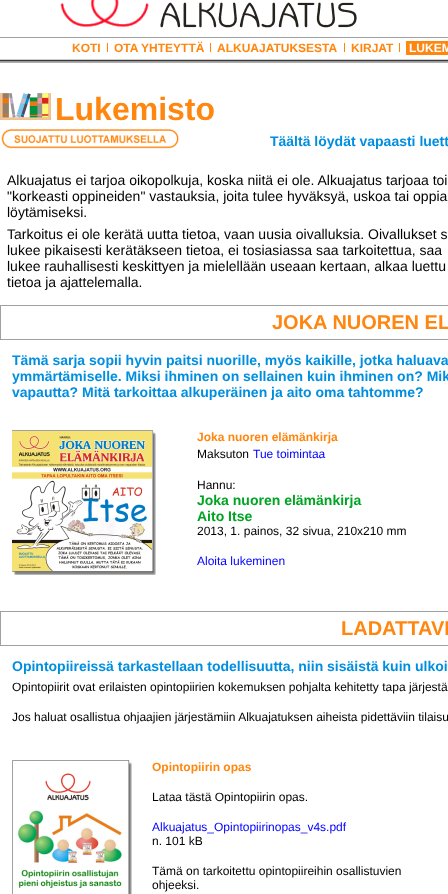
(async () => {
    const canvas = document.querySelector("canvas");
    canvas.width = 448;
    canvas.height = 894;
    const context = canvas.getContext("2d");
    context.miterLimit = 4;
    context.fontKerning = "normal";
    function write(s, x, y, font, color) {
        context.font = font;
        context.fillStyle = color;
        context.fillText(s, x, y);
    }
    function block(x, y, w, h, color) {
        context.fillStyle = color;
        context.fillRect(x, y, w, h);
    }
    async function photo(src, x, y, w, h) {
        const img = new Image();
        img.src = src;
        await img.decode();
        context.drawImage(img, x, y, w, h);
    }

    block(0, 0, 448, 894, "rgb(255, 255, 255)");
    block(0, 37, 448, 1, "rgb(160, 160, 160)");
    await photo("media/1.png", 60, 0, 297, 28);
    write("KOTI", 72, 52, "bold 12px Liberation Sans", "rgb(255, 134, 15)");
    block(107, 43, 1, 9, "rgb(255, 132, 8)");
    write("OTA YHTEYTTÄ", 114, 52, "bold 12px Liberation Sans", "rgb(255, 134, 15)");
    block(210, 43, 1, 9, "rgb(255, 132, 8)");
    write("ALKUAJATUKSESTA", 217, 52, "bold 12px Liberation Sans", "rgb(255, 134, 15)");
    block(344, 43, 1, 9, "rgb(255, 132, 8)");
    write("KIRJAT", 351, 52, "bold 12px Liberation Sans", "rgb(255, 134, 15)");
    block(399, 43, 1, 9, "rgb(255, 132, 8)");
    block(406, 41, 42, 14, "rgb(255, 134, 15)");
    write("LUKEM", 409, 52, "bold 12px Liberation Sans", "rgb(255, 255, 255)");
    await photo("media/2.png", 0, 59, 448, 4);
    await photo("media/3.png", 0, 93, 51, 27);
    write("Lukemisto", 55, 120, "bold 32px Liberation Sans", "rgb(255, 134, 15)");
    await photo("media/4.png", 1, 129, 178, 20);
    write("Täältä löydät vapaasti luett", 270, 146, "bold 14px Liberation Sans", "rgb(0, 143, 224)");
    write("Alkuajatus ei tarjoa oikopolkuja, koska niitä ei ole. Alkuajatus tarjoaa toi", 7, 185, "14px Liberation Sans", "rgb(0, 0, 0)");
    write("\"korkeasti oppineiden\" vastauksia, joita tulee hyväksyä, uskoa tai oppia", 7, 201, "14px Liberation Sans", "rgb(0, 0, 0)");
    write("löytämiseksi.", 7, 217, "14px Liberation Sans", "rgb(0, 0, 0)");
    write("Tarkoitus ei ole kerätä uutta tietoa, vaan uusia oivalluksia. Oivallukset s", 7, 239, "14px Liberation Sans", "rgb(0, 0, 0)");
    write("lukee pikaisesti kerätäkseen tietoa, ei tosiasiassa saa tarkoitettua, saa", 7, 255, "14px Liberation Sans", "rgb(0, 0, 0)");
    write("lukee rauhallisesti keskittyen ja mielellään useaan kertaan, alkaa luettu", 7, 271, "14px Liberation Sans", "rgb(0, 0, 0)");
    write("tietoa ja ajattelemalla.", 7, 287, "14px Liberation Sans", "rgb(0, 0, 0)");
    context.strokeStyle = "rgb(160, 160, 160)";
    context.strokeRect(0.5, 305.5, 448, 34);
    write("JOKA NUOREN EL", 272, 329, "bold 20px Liberation Sans", "rgb(255, 134, 15)");
    write("Tämä sarja sopii hyvin paitsi nuorille, myös kaikille, jotka haluava", 12, 365, "bold 14px Liberation Sans", "rgb(0, 143, 224)");
    write("ymmärtämiselle. Miksi ihminen on sellainen kuin ihminen on? Mik", 12, 381, "bold 14px Liberation Sans", "rgb(0, 143, 224)");
    write("vapautta? Mitä tarkoittaa alkuperäinen ja aito oma tahtomme?", 12, 397, "bold 14px Liberation Sans", "rgb(0, 143, 224)");
    await photo("media/5.png", 12, 430, 144, 145);
    write("Joka nuoren elämänkirja", 197, 441, "bold 12px Liberation Sans", "rgb(255, 134, 15)");
    write("Maksuton", 197, 458, "12px Liberation Sans", "rgb(0, 0, 0)");
    write("Tue toimintaa", 253, 458, "12px Liberation Sans", "rgb(0, 0, 255)");
    write("Hannu:", 197, 489, "12px Liberation Sans", "rgb(0, 0, 0)");
    write("Joka nuoren elämänkirja", 197, 505, "bold 14px Liberation Sans", "rgb(0, 164, 35)");
    write("Aito Itse", 197, 521, "bold 14px Liberation Sans", "rgb(0, 164, 35)");
    write("2013, 1. painos, 32 sivua, 210x210 mm", 197, 535, "12px Liberation Sans", "rgb(0, 0, 0)");
    write("Aloita lukeminen", 197, 565, "12px Liberation Sans", "rgb(0, 0, 255)");
    context.strokeRect(0.5, 611.5, 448, 34);
    write("LADATTAVI", 341, 635, "bold 20px Liberation Sans", "rgb(255, 134, 15)");
    write("Opintopiireissä tarkastellaan todellisuutta, niin sisäistä kuin ulkoi", 12, 671, "bold 14px Liberation Sans", "rgb(0, 143, 224)");
    write("Opintopiirit ovat erilaisten opintopiirien kokemuksen pohjalta kehitetty tapa järjestä", 12, 691, "12px Liberation Sans", "rgb(0, 0, 0)");
    write("Jos haluat osallistua ohjaajien järjestämiin Alkuajatuksen aiheista pidettäviin tilaisu", 12, 721, "12px Liberation Sans", "rgb(0, 0, 0)");
    await photo("media/6.png", 12, 760, 120, 134);
    write("Opintopiirin opas", 152, 771, "bold 12px Liberation Sans", "rgb(255, 134, 15)");
    write("Lataa tästä Opintopiirin opas.", 152, 801, "12px Liberation Sans", "rgb(0, 0, 0)");
    write("Alkuajatus_Opintopiirinopas_v4s.pdf", 152, 831, "12px Liberation Sans", "rgb(0, 0, 255)");
    write("n. 101 kB", 152, 845, "12px Liberation Sans", "rgb(0, 0, 0)");
    write("Tämä on tarkoitettu opintopiireihin osallistuvien", 152, 875, "12px Liberation Sans", "rgb(0, 0, 0)");
    write("ohjeeksi.", 152, 889, "12px Liberation Sans", "rgb(0, 0, 0)");
})();
